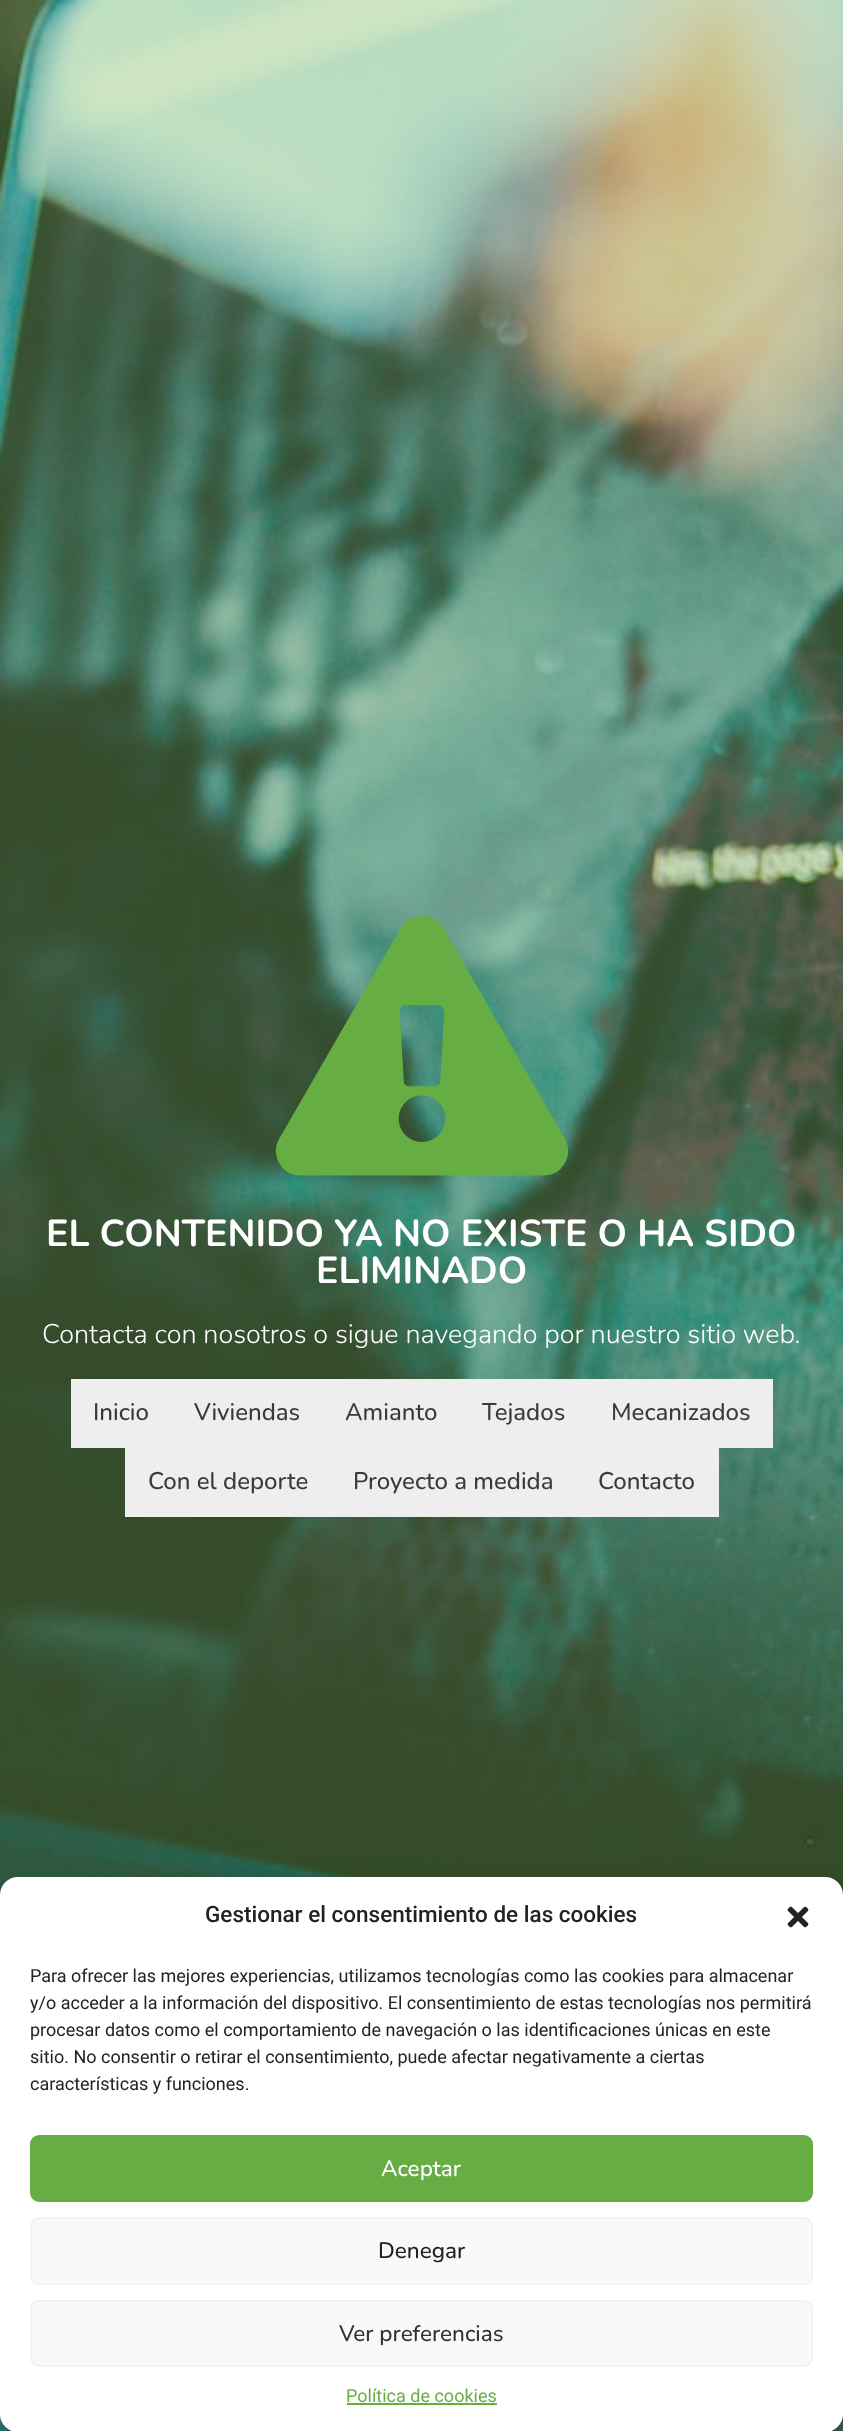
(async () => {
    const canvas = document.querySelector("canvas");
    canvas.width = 843;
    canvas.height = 2431;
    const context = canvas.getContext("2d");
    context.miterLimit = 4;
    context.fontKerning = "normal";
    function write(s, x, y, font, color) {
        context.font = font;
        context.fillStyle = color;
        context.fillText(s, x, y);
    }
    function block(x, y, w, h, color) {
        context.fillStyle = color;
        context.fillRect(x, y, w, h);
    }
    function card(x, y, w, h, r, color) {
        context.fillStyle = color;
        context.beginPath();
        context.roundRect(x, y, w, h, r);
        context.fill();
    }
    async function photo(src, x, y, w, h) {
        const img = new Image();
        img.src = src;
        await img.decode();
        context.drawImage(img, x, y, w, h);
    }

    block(0, 0, 843, 2431, "rgb(255, 255, 255)");
    await photo("media/1.png", 0, 0, 843, 2431);
    await photo("media/2.png", 275, 916, 294, 260);
    write("EL CONTENIDO YA NO EXISTE O HA SIDO", 46, 1246, "bold 37.5px Nunito", "rgb(255, 255, 255)");
    write("ELIMINADO", 316, 1283, "bold 37.5px Nunito", "rgb(255, 255, 255)");
    write("Contacta con nosotros o sigue navegando por nuestro sitio web.", 42, 1343, "300 27px Nunito", "rgb(255, 255, 255)");
    block(71, 1379, 702, 69, "rgb(238, 238, 238)");
    write("Inicio", 93, 1420, "500 24px Nunito", "rgb(58, 58, 58)");
    write("Viviendas", 194, 1420, "500 24px Nunito", "rgb(58, 58, 58)");
    write("Amianto", 345, 1420, "500 24px Nunito", "rgb(58, 58, 58)");
    write("Tejados", 482, 1420, "500 24px Nunito", "rgb(58, 58, 58)");
    write("Mecanizados", 611, 1420, "500 24px Nunito", "rgb(58, 58, 58)");
    block(125, 1448, 594, 69, "rgb(238, 238, 238)");
    write("Con el deporte", 148, 1489, "500 24px Nunito", "rgb(58, 58, 58)");
    write("Proyecto a medida", 353, 1489, "500 24px Nunito", "rgb(58, 58, 58)");
    write("Contacto", 598, 1489, "500 24px Nunito", "rgb(58, 58, 58)");
    context.fillStyle = "rgba(0, 0, 0, 0.23)";
    context.filter = "blur(4.5px)";
    context.beginPath();
    context.roundRect(0, 1886, 843, 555, 18);
    context.fill();
    context.filter = "none";
    context.fillStyle = "rgba(0, 0, 0, 0.19)";
    context.filter = "blur(15px)";
    context.beginPath();
    context.roundRect(0, 1892, 843, 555, 18);
    context.fill();
    context.filter = "none";
    card(0, 1877, 843, 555, 18, "rgb(255, 255, 255)");
    write("Gestionar el consentimiento de las cookies", 205, 1922, "500 22.5px Roboto", "rgb(34, 34, 34)");
    await photo("media/3.png", 787, 1906, 22, 22);
    write("Para ofrecer las mejores experiencias, utilizamos tecnologías como las cookies para almacenar", 30, 1982, "18px Roboto", "rgb(34, 34, 34)");
    write("y/o acceder a la información del dispositivo. El consentimiento de estas tecnologías nos permitirá", 30, 2009, "18px Roboto", "rgb(34, 34, 34)");
    write("procesar datos como el comportamiento de navegación o las identificaciones únicas en este", 30, 2036, "18px Roboto", "rgb(34, 34, 34)");
    write("sitio. No consentir o retirar el consentimiento, puede afectar negativamente a ciertas", 30, 2063, "18px Roboto", "rgb(34, 34, 34)");
    write("características y funciones.", 30, 2090, "18px Roboto", "rgb(34, 34, 34)");
    context.fillStyle = "rgb(102, 174, 68)";
    context.beginPath();
    context.roundRect(31, 2136, 781, 65, 8);
    context.fill();
    context.strokeStyle = "rgb(102, 174, 68)";
    context.lineWidth = 2;
    context.stroke();
    write("Aceptar", 381, 2176, "500 22.5px Nunito", "rgb(255, 255, 255)");
    context.fillStyle = "rgb(249, 249, 249)";
    context.beginPath();
    context.roundRect(31, 2218, 781, 66, 8);
    context.fill();
    context.strokeStyle = "rgb(242, 242, 242)";
    context.stroke();
    write("Denegar", 378, 2258, "500 22.5px Nunito", "rgb(34, 34, 34)");
    context.fillStyle = "rgb(249, 249, 249)";
    context.beginPath();
    context.roundRect(31, 2301, 781, 65, 8);
    context.fill();
    context.stroke();
    write("Ver preferencias", 339, 2341, "500 22.5px Nunito", "rgb(51, 51, 51)");
    write("Política de cookies", 346, 2402, "18px Roboto", "rgb(102, 174, 68)");
    block(347, 2403, 150, 2, "rgb(102, 174, 68)");
})();
